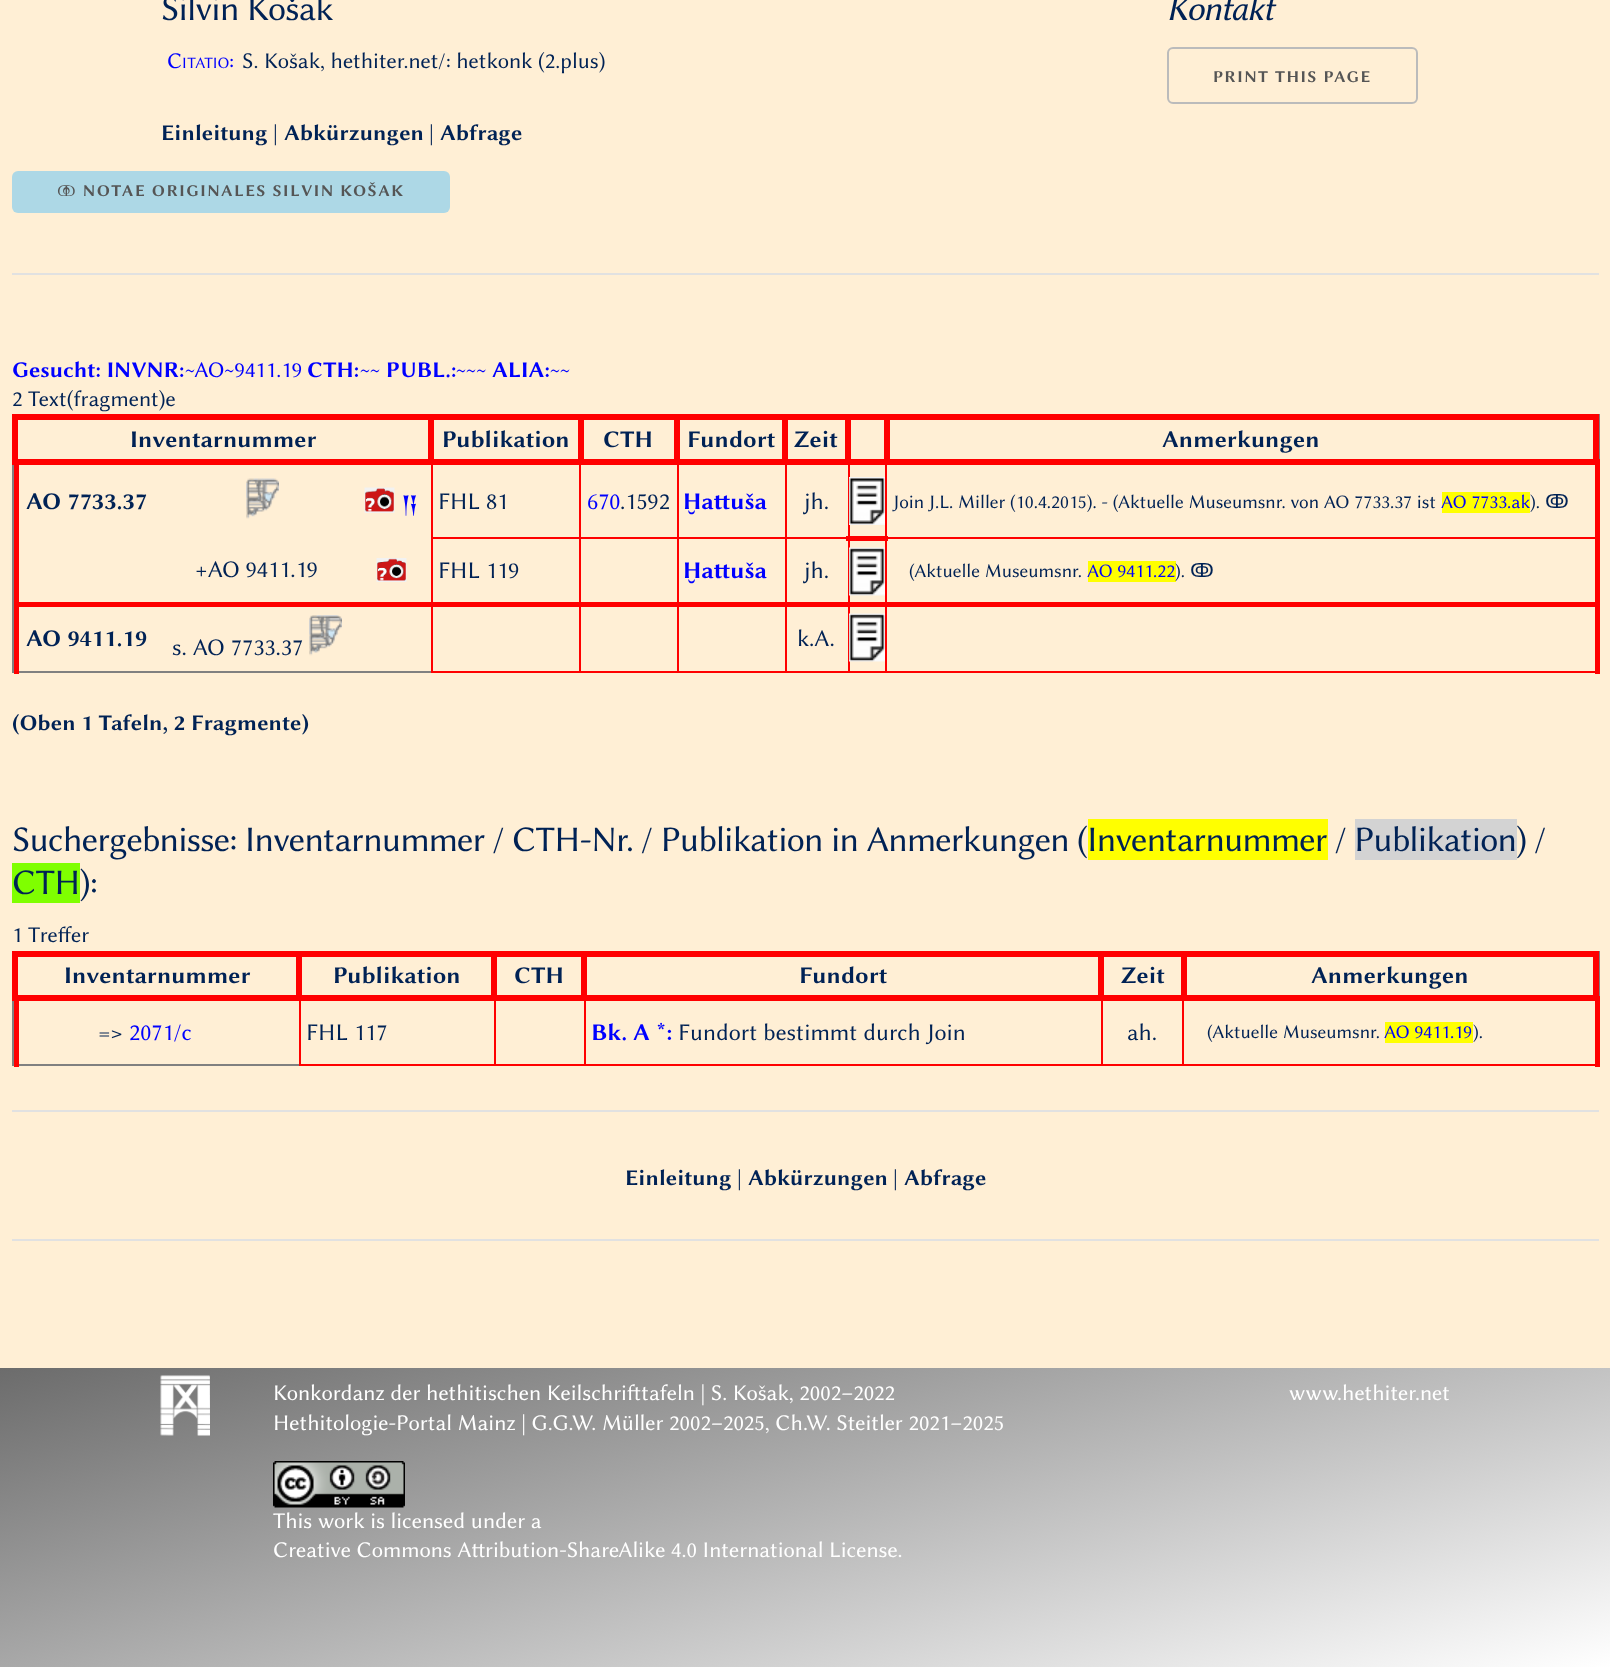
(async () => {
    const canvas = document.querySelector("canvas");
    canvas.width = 1610;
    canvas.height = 1667;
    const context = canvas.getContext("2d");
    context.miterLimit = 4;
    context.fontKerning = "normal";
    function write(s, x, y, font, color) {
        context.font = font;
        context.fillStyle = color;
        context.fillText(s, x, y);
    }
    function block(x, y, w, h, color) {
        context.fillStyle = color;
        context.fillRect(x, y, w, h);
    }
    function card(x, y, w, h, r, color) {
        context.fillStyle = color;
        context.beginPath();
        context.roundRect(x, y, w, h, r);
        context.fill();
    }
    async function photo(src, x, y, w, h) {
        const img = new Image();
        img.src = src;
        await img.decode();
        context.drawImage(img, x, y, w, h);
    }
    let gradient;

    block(0, 0, 1610, 1667, "rgb(255, 239, 213)");
    context.letterSpacing = "-0.75px";
    write("Silvin Košak", 161, 20, "36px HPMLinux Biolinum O", "rgb(0, 34, 85)");
    write("Kontakt", 1166, 20, "italic 36px HPMLinux Biolinum O", "rgb(0, 34, 85)");
    context.letterSpacing = "0px";
    write("C", 167, 68, "22.5px HPMLinux Biolinum O", "rgb(0, 0, 255)");
    write("ITATIO", 182, 68, "16px HPMLinux Biolinum O", "rgb(0, 0, 255)");
    write(":", 229, 68, "22.5px HPMLinux Biolinum O", "rgb(0, 0, 255)");
    write("S. Košak, hethiter.net/: hetkonk (2.plus)", 242, 68, "22.5px HPMLinux Biolinum O", "rgb(0, 34, 85)");
    context.beginPath();
    context.roundRect(1168, 48, 249, 55, 5);
    context.strokeStyle = "rgb(187, 187, 187)";
    context.lineWidth = 2;
    context.stroke();
    context.letterSpacing = "1.5px";
    write("PRINT THIS PAGE", 1213, 82, "bold 16.5px HPMLinux Biolinum O", "rgb(85, 85, 85)");
    context.letterSpacing = "0px";
    write("Einleitung", 161, 140, "bold 22.5px HPMLinux Biolinum O", "rgb(0, 34, 85)");
    write("|", 273, 140, "22.5px HPMLinux Biolinum O", "rgb(0, 34, 85)");
    write("Abkürzungen", 284, 140, "bold 22.5px HPMLinux Biolinum O", "rgb(0, 34, 85)");
    write("|", 429, 140, "22.5px HPMLinux Biolinum O", "rgb(0, 34, 85)");
    write("Abfrage", 440, 140, "bold 22.5px HPMLinux Biolinum O", "rgb(0, 34, 85)");
    card(12, 171, 438, 42, 6, "rgb(173, 216, 230)");
    context.letterSpacing = "1.5px";
    write("ↂ NOTAE ORIGINALES SILVIN KOŠAK", 57, 196, "bold 16.5px HPMLinux Biolinum O", "rgb(85, 85, 85)");
    block(12, 273, 1587, 2, "rgb(225, 225, 225)");
    context.letterSpacing = "0px";
    write("Gesucht: INVNR:", 12, 377, "bold 22.5px HPMLinux Biolinum O", "rgb(0, 0, 255)");
    write("~AO~9411.19", 185, 377, "22.5px HPMLinux Biolinum O", "rgb(0, 0, 255)");
    write("CTH:", 307, 377, "bold 22.5px HPMLinux Biolinum O", "rgb(0, 0, 255)");
    write("~~", 360, 377, "22.5px HPMLinux Biolinum O", "rgb(0, 0, 255)");
    write("PUBL.:", 386, 377, "bold 22.5px HPMLinux Biolinum O", "rgb(0, 0, 255)");
    write("~~~", 456, 377, "22.5px HPMLinux Biolinum O", "rgb(0, 0, 255)");
    write("ALIA:", 492, 377, "bold 22.5px HPMLinux Biolinum O", "rgb(0, 0, 255)");
    write("~~", 550, 377, "22.5px HPMLinux Biolinum O", "rgb(0, 0, 255)");
    write("2 Text(fragment)e", 12, 406, "22.5px HPMLinux Biolinum O", "rgb(0, 34, 85)");
    block(1599, 414, 1, 45, "rgb(128, 128, 128)");
    block(12, 671, 419, 2, "rgb(128, 128, 128)");
    block(12, 465, 2, 207, "rgb(128, 128, 128)");
    block(884, 414, 715, 6, "rgb(255, 0, 0)");
    block(885, 671, 713, 2, "rgb(255, 0, 0)");
    block(885, 537, 2, 135, "rgb(255, 0, 0)");
    block(885, 537, 713, 2, "rgb(255, 0, 0)");
    block(848, 671, 39, 2, "rgb(255, 0, 0)");
    block(848, 461, 2, 211, "rgb(255, 0, 0)");
    block(785, 671, 64, 2, "rgb(255, 0, 0)");
    block(785, 537, 2, 135, "rgb(255, 0, 0)");
    block(677, 671, 109, 2, "rgb(255, 0, 0)");
    block(677, 537, 2, 135, "rgb(255, 0, 0)");
    block(579, 671, 99, 2, "rgb(255, 0, 0)");
    block(579, 537, 2, 135, "rgb(255, 0, 0)");
    block(431, 671, 150, 2, "rgb(255, 0, 0)");
    block(431, 537, 2, 135, "rgb(255, 0, 0)");
    block(14, 602, 1585, 5, "rgb(255, 0, 0)");
    block(1595, 459, 5, 215, "rgb(255, 0, 0)");
    block(1593, 414, 6, 51, "rgb(255, 0, 0)");
    block(885, 461, 2, 78, "rgb(255, 0, 0)");
    block(884, 459, 715, 6, "rgb(255, 0, 0)");
    block(884, 414, 6, 51, "rgb(255, 0, 0)");
    block(845, 414, 45, 6, "rgb(255, 0, 0)");
    block(845, 459, 45, 6, "rgb(255, 0, 0)");
    block(845, 414, 6, 51, "rgb(255, 0, 0)");
    block(782, 414, 69, 6, "rgb(255, 0, 0)");
    block(785, 537, 64, 2, "rgb(255, 0, 0)");
    block(785, 461, 2, 78, "rgb(255, 0, 0)");
    block(782, 459, 69, 6, "rgb(255, 0, 0)");
    block(782, 414, 6, 51, "rgb(255, 0, 0)");
    block(674, 414, 114, 6, "rgb(255, 0, 0)");
    block(677, 537, 109, 2, "rgb(255, 0, 0)");
    block(677, 461, 2, 78, "rgb(255, 0, 0)");
    block(674, 459, 114, 6, "rgb(255, 0, 0)");
    block(674, 414, 6, 51, "rgb(255, 0, 0)");
    block(578, 414, 102, 6, "rgb(255, 0, 0)");
    block(579, 537, 99, 2, "rgb(255, 0, 0)");
    block(579, 461, 2, 78, "rgb(255, 0, 0)");
    block(578, 459, 102, 6, "rgb(255, 0, 0)");
    block(578, 414, 6, 51, "rgb(255, 0, 0)");
    block(428, 414, 156, 6, "rgb(255, 0, 0)");
    block(431, 537, 150, 2, "rgb(255, 0, 0)");
    block(431, 461, 2, 78, "rgb(255, 0, 0)");
    block(428, 459, 156, 6, "rgb(255, 0, 0)");
    block(428, 414, 6, 51, "rgb(255, 0, 0)");
    block(12, 414, 422, 6, "rgb(255, 0, 0)");
    block(14, 459, 5, 215, "rgb(255, 0, 0)");
    block(12, 459, 422, 6, "rgb(255, 0, 0)");
    block(12, 414, 6, 51, "rgb(255, 0, 0)");
    write("Inventarnummer", 130, 447, "bold 24px HPMLinux Biolinum O", "rgb(0, 34, 85)");
    write("Publikation", 442, 447, "bold 24px HPMLinux Biolinum O", "rgb(0, 34, 85)");
    write("CTH", 603, 447, "bold 24px HPMLinux Biolinum O", "rgb(0, 34, 85)");
    write("Fundort", 687, 447, "bold 24px HPMLinux Biolinum O", "rgb(0, 34, 85)");
    write("Zeit", 794, 447, "bold 24px HPMLinux Biolinum O", "rgb(0, 34, 85)");
    write("Anmerkungen", 1162, 447, "bold 24px HPMLinux Biolinum O", "rgb(0, 34, 85)");
    write("AO 7733.37", 26, 509, "bold 24px HPMLinux Biolinum O", "rgb(0, 34, 85)");
    await photo("media/1.png", 246, 478, 33, 41);
    await photo("media/2.png", 364, 487, 31, 26);
    write("𒀀", 401, 513, "24px Noto Sans Cuneiform", "rgb(0, 0, 255)");
    write("FHL 81", 438, 509, "24px HPMLinux Biolinum O", "rgb(0, 34, 85)");
    write("670", 587, 509, "24px HPMLinux Biolinum O", "rgb(0, 0, 255)");
    write(".1592", 620, 509, "24px HPMLinux Biolinum O", "rgb(0, 34, 85)");
    write("Ḫattuša", 683, 509, "bold 24px HPMLinux Biolinum O", "rgb(0, 0, 255)");
    write("jh.", 804, 509, "24px HPMLinux Biolinum O", "rgb(0, 34, 85)");
    await photo("media/3.png", 849, 477, 36, 48);
    write("Join J.L. Miller (10.4.2015). - (Aktuelle Museumsnr. von AO 7733.37 ist", 893, 508, "19.2px HPMLinux Biolinum O", "rgb(0, 34, 85)");
    block(1442, 492, 88, 21, "rgb(255, 255, 0)");
    write("AO 7733.ak", 1441, 508, "19.2px HPMLinux Biolinum O", "rgb(0, 0, 255)");
    write(").", 1530, 508, "19.2px HPMLinux Biolinum O", "rgb(0, 34, 85)");
    write("ↂ", 1545, 508, "19.2px DejaVu Sans", "rgb(0, 34, 85)");
    write("+AO 9411.19", 195, 577, "24px HPMLinux Biolinum O", "rgb(0, 34, 85)");
    await photo("media/4.png", 376, 558, 31, 24);
    write("FHL 119", 438, 578, "24px HPMLinux Biolinum O", "rgb(0, 34, 85)");
    write("Ḫattuša", 683, 578, "bold 24px HPMLinux Biolinum O", "rgb(0, 0, 255)");
    write("jh.", 804, 578, "24px HPMLinux Biolinum O", "rgb(0, 34, 85)");
    block(846, 536, 42, 5, "rgb(255, 0, 0)");
    await photo("media/5.png", 849, 547, 36, 49);
    write("(Aktuelle Museumsnr.", 909, 577, "19.2px HPMLinux Biolinum O", "rgb(0, 34, 85)");
    block(1088, 561, 88, 21, "rgb(255, 255, 0)");
    write("AO 9411.22", 1087, 577, "19.2px HPMLinux Biolinum O", "rgb(0, 0, 255)");
    write(").", 1175, 577, "19.2px HPMLinux Biolinum O", "rgb(0, 34, 85)");
    write("ↂ", 1190, 577, "19.2px DejaVu Sans", "rgb(0, 34, 85)");
    write("AO 9411.19", 26, 646, "bold 24px HPMLinux Biolinum O", "rgb(0, 34, 85)");
    write("s. AO 7733.37", 172, 655, "24px HPMLinux Biolinum O", "rgb(0, 34, 85)");
    await photo("media/6.png", 309, 615, 33, 41);
    write("k.A.", 797, 646, "24px HPMLinux Biolinum O", "rgb(0, 34, 85)");
    await photo("media/5.png", 849, 613, 36, 49);
    write("(Oben 1 Tafeln, 2 Fragmente)", 12, 730, "bold 22.5px HPMLinux Biolinum O", "rgb(0, 34, 85)");
    context.letterSpacing = "-0.75px";
    write("Suchergebnisse: Inventarnummer / CTH-Nr. / Publikation in Anmerkungen (", 12, 851, "36px HPMLinux Biolinum O", "rgb(0, 34, 85)");
    block(1088, 819, 240, 41, "rgb(255, 255, 0)");
    write("Inventarnummer /", 1087, 851, "36px HPMLinux Biolinum O", "rgb(0, 34, 85)");
    block(1355, 819, 162, 41, "rgb(211, 211, 211)");
    write("Publikation) /", 1354, 851, "36px HPMLinux Biolinum O", "rgb(0, 34, 85)");
    block(12, 863, 68, 40, "rgb(127, 255, 0)");
    write("CTH):", 12, 894, "36px HPMLinux Biolinum O", "rgb(0, 34, 85)");
    context.letterSpacing = "0px";
    write("1 Treffer", 12, 942, "22.5px HPMLinux Biolinum O", "rgb(0, 34, 85)");
    block(1599, 951, 1, 45, "rgb(128, 128, 128)");
    block(12, 1064, 287, 2, "rgb(128, 128, 128)");
    block(12, 1001, 2, 64, "rgb(128, 128, 128)");
    block(1181, 951, 418, 6, "rgb(255, 0, 0)");
    block(1182, 1064, 416, 2, "rgb(255, 0, 0)");
    block(1595, 996, 5, 71, "rgb(255, 0, 0)");
    block(1593, 951, 6, 50, "rgb(255, 0, 0)");
    block(1182, 998, 2, 67, "rgb(255, 0, 0)");
    block(1181, 995, 418, 6, "rgb(255, 0, 0)");
    block(1181, 951, 6, 50, "rgb(255, 0, 0)");
    block(1098, 951, 89, 6, "rgb(255, 0, 0)");
    block(1101, 1064, 83, 2, "rgb(255, 0, 0)");
    block(1101, 998, 2, 67, "rgb(255, 0, 0)");
    block(1098, 995, 89, 6, "rgb(255, 0, 0)");
    block(1098, 951, 6, 50, "rgb(255, 0, 0)");
    block(581, 951, 523, 6, "rgb(255, 0, 0)");
    block(584, 1064, 519, 2, "rgb(255, 0, 0)");
    block(584, 998, 2, 67, "rgb(255, 0, 0)");
    block(581, 995, 523, 6, "rgb(255, 0, 0)");
    block(581, 951, 6, 50, "rgb(255, 0, 0)");
    block(491, 951, 96, 6, "rgb(255, 0, 0)");
    block(494, 1064, 91, 2, "rgb(255, 0, 0)");
    block(494, 998, 2, 67, "rgb(255, 0, 0)");
    block(491, 995, 96, 6, "rgb(255, 0, 0)");
    block(491, 951, 6, 50, "rgb(255, 0, 0)");
    block(296, 951, 201, 6, "rgb(255, 0, 0)");
    block(299, 1064, 196, 2, "rgb(255, 0, 0)");
    block(299, 998, 2, 67, "rgb(255, 0, 0)");
    block(296, 995, 201, 6, "rgb(255, 0, 0)");
    block(296, 951, 6, 50, "rgb(255, 0, 0)");
    block(12, 951, 290, 6, "rgb(255, 0, 0)");
    block(14, 996, 5, 71, "rgb(255, 0, 0)");
    block(12, 995, 290, 6, "rgb(255, 0, 0)");
    block(12, 951, 6, 50, "rgb(255, 0, 0)");
    write("Inventarnummer", 64, 983, "bold 24px HPMLinux Biolinum O", "rgb(0, 34, 85)");
    write("Publikation", 333, 983, "bold 24px HPMLinux Biolinum O", "rgb(0, 34, 85)");
    write("CTH", 514, 983, "bold 24px HPMLinux Biolinum O", "rgb(0, 34, 85)");
    write("Fundort", 799, 983, "bold 24px HPMLinux Biolinum O", "rgb(0, 34, 85)");
    write("Zeit", 1121, 983, "bold 24px HPMLinux Biolinum O", "rgb(0, 34, 85)");
    write("Anmerkungen", 1311, 983, "bold 24px HPMLinux Biolinum O", "rgb(0, 34, 85)");
    write("=>", 98, 1040, "24px HPMLinux Biolinum O", "rgb(0, 34, 85)");
    write("2071/c", 129, 1040, "24px HPMLinux Biolinum O", "rgb(0, 0, 255)");
    write("FHL 117", 306, 1040, "24px HPMLinux Biolinum O", "rgb(0, 34, 85)");
    write("Bk. A *:", 591, 1040, "bold 24px HPMLinux Biolinum O", "rgb(0, 0, 255)");
    write("Fundort bestimmt durch Join", 678, 1040, "24px HPMLinux Biolinum O", "rgb(0, 34, 85)");
    write("ah.", 1127, 1040, "24px HPMLinux Biolinum O", "rgb(0, 34, 85)");
    write("(Aktuelle Museumsnr.", 1207, 1038, "19.2px HPMLinux Biolinum O", "rgb(0, 34, 85)");
    block(1385, 1022, 88, 21, "rgb(255, 255, 0)");
    write("AO 9411.19", 1384, 1038, "19.2px HPMLinux Biolinum O", "rgb(0, 0, 255)");
    write(").", 1473, 1038, "19.2px HPMLinux Biolinum O", "rgb(0, 34, 85)");
    block(12, 1110, 1587, 2, "rgb(225, 225, 225)");
    write("Einleitung", 625, 1185, "bold 22.5px HPMLinux Biolinum O", "rgb(0, 34, 85)");
    write("|", 737, 1185, "22.5px HPMLinux Biolinum O", "rgb(0, 34, 85)");
    write("Abkürzungen", 748, 1185, "bold 22.5px HPMLinux Biolinum O", "rgb(0, 34, 85)");
    write("|", 893, 1185, "22.5px HPMLinux Biolinum O", "rgb(0, 34, 85)");
    write("Abfrage", 904, 1185, "bold 22.5px HPMLinux Biolinum O", "rgb(0, 34, 85)");
    block(12, 1239, 1587, 2, "rgb(225, 225, 225)");
    gradient = context.createLinearGradient(714, 1177, 897, 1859);
    gradient.addColorStop(0, "rgb(108, 108, 108)");
    gradient.addColorStop(1, "rgb(255, 255, 255)");
    context.fillStyle = gradient;
    context.fillRect(0, 1368, 1610, 299);
    await photo("media/7.png", 160, 1375, 50, 61);
    write("Konkordanz der hethitischen Keilschrifttafeln | S. Košak, 2002–2022", 273, 1400, "22.5px HPMLinux Biolinum O", "rgb(255, 255, 255)");
    write("Hethitologie-Portal Mainz | G.G.W. Müller 2002–2025, Ch.W. Steitler 2021–2025", 273, 1430, "22.5px HPMLinux Biolinum O", "rgb(255, 255, 255)");
    await photo("media/8.png", 273, 1461, 132, 47);
    write("This work is licensed under a", 273, 1528, "22.5px HPMLinux Biolinum O", "rgb(255, 255, 255)");
    write("Creative Commons Attribution-ShareAlike 4.0 International License.", 273, 1557, "22.5px HPMLinux Biolinum O", "rgb(255, 255, 255)");
    write("www.hethiter.net", 1289, 1400, "22.5px HPMLinux Biolinum O", "rgb(255, 255, 255)");
})();
